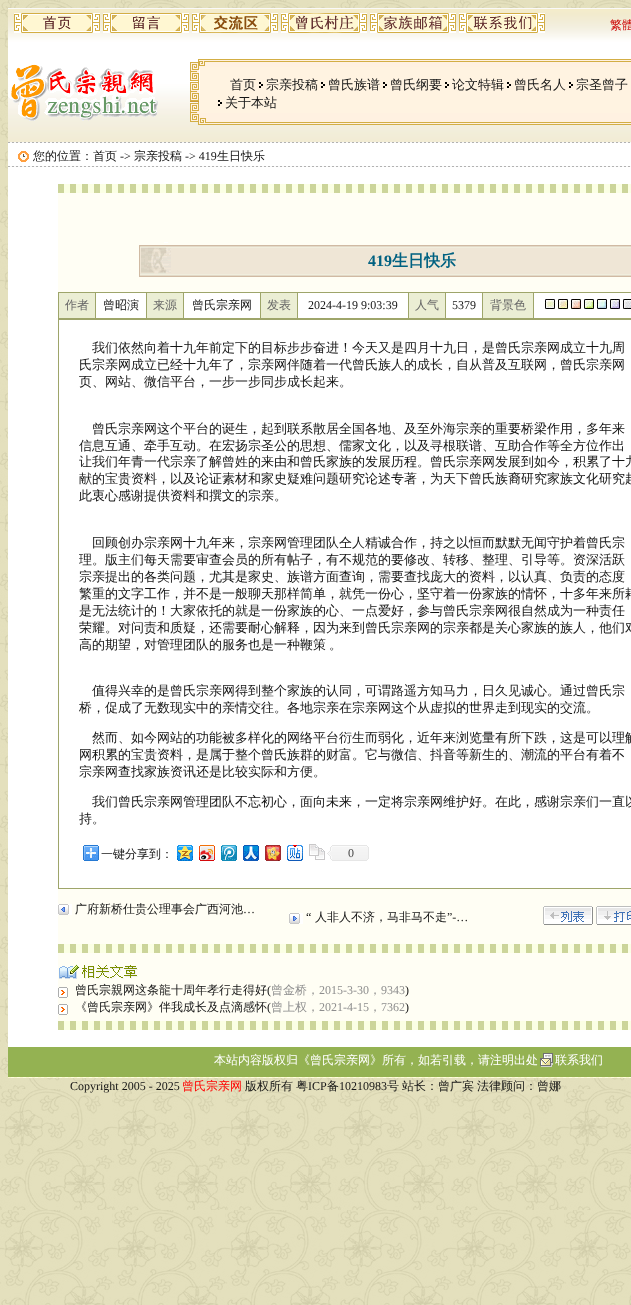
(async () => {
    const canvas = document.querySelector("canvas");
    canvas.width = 631;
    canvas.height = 1305;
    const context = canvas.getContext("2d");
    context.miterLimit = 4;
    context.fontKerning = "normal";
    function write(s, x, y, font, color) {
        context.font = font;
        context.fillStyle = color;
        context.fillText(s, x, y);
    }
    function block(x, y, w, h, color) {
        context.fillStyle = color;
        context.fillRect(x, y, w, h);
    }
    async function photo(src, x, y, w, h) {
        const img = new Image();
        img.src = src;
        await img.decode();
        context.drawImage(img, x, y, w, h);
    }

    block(0, 0, 631, 1305, "rgb(255, 255, 255)");
    await photo("media/1.png", 0, 0, 631, 1305);
    await photo("media/2.png", 8, 8, 571, 34);
    await photo("media/3.png", 14, 13, 86, 20);
    await photo("media/4.png", 103, 13, 86, 20);
    await photo("media/5.png", 192, 13, 86, 20);
    await photo("media/6.png", 281, 13, 86, 20);
    await photo("media/7.png", 370, 13, 86, 20);
    await photo("media/8.png", 459, 13, 86, 20);
    await photo("media/9.png", 579, 8, 52, 34);
    write("繁體", 610, 29, "500 12px WenQuanYi Zen Hei", "rgb(204, 0, 0)");
    await photo("media/10.png", 8, 42, 623, 100);
    await photo("media/11.png", 8, 64, 150, 57);
    write("首页", 230, 89, "500 13px WenQuanYi Zen Hei", "rgb(21, 21, 21)");
    await photo("media/12.png", 259, 82, 4, 6);
    write("宗亲投稿", 266, 89, "500 13px WenQuanYi Zen Hei", "rgb(21, 21, 21)");
    await photo("media/12.png", 321, 82, 4, 6);
    write("曾氏族谱", 328, 89, "500 13px WenQuanYi Zen Hei", "rgb(21, 21, 21)");
    await photo("media/12.png", 383, 82, 4, 6);
    write("曾氏纲要", 390, 89, "500 13px WenQuanYi Zen Hei", "rgb(21, 21, 21)");
    await photo("media/12.png", 445, 82, 4, 6);
    write("论文特辑", 452, 89, "500 13px WenQuanYi Zen Hei", "rgb(21, 21, 21)");
    await photo("media/12.png", 507, 82, 4, 6);
    write("曾氏名人", 514, 89, "500 13px WenQuanYi Zen Hei", "rgb(21, 21, 21)");
    await photo("media/12.png", 569, 82, 4, 6);
    write("宗圣曾子", 576, 89, "500 13px WenQuanYi Zen Hei", "rgb(21, 21, 21)");
    await photo("media/12.png", 218, 100, 4, 6);
    write("关于本站", 225, 107, "500 13px WenQuanYi Zen Hei", "rgb(21, 21, 21)");
    await photo("media/13.png", 8, 142, 623, 1);
    block(8, 143, 623, 904, "rgb(255, 255, 255)");
    await photo("media/14.png", 18, 151, 11, 11);
    write("您的位置：首页", 33, 160, "500 12px WenQuanYi Zen Hei", "rgb(21, 21, 21)");
    write("->", 120, 160, "12px Liberation Serif", "rgb(21, 21, 21)");
    write("宗亲投稿", 134, 160, "500 12px WenQuanYi Zen Hei", "rgb(21, 21, 21)");
    write("-> 419", 185, 160, "12px Liberation Serif", "rgb(21, 21, 21)");
    write("生日快乐", 217, 160, "500 12px WenQuanYi Zen Hei", "rgb(21, 21, 21)");
    await photo("media/13.png", 8, 166, 623, 1);
    block(58, 193, 573, 751, "rgb(255, 254, 244)");
    await photo("media/15.png", 58, 184, 573, 9);
    await photo("media/16.png", 139, 242, 492, 35);
    write("419", 368, 266, "bold 16px Liberation Serif", "rgb(0, 97, 129)");
    write("生日快乐", 392, 266, "bold 16px WenQuanYi Zen Hei", "rgb(0, 97, 129)");
    block(58, 292, 573, 597, "rgb(158, 165, 106)");
    block(59, 293, 36, 25, "rgb(235, 238, 212)");
    write("作者", 65, 309, "500 12px WenQuanYi Zen Hei", "rgb(102, 102, 102)");
    block(96, 293, 50, 25, "rgb(255, 255, 255)");
    write("曾昭演", 103, 309, "500 12px WenQuanYi Zen Hei", "rgb(21, 21, 21)");
    block(147, 293, 36, 25, "rgb(235, 238, 212)");
    write("来源", 153, 309, "500 12px WenQuanYi Zen Hei", "rgb(102, 102, 102)");
    block(184, 293, 76, 25, "rgb(255, 255, 255)");
    write("曾氏宗亲网", 192, 309, "500 12px WenQuanYi Zen Hei", "rgb(21, 21, 21)");
    block(261, 293, 36, 25, "rgb(235, 238, 212)");
    write("发表", 267, 309, "500 12px WenQuanYi Zen Hei", "rgb(102, 102, 102)");
    block(298, 293, 110, 25, "rgb(255, 255, 255)");
    write("2024-4-19 9:03:39", 308, 309, "12px Liberation Serif", "rgb(21, 21, 21)");
    block(409, 293, 36, 25, "rgb(235, 238, 212)");
    write("人气", 415, 309, "500 12px WenQuanYi Zen Hei", "rgb(102, 102, 102)");
    block(446, 293, 36, 25, "rgb(255, 255, 255)");
    write("5379", 452, 309, "12px Liberation Serif", "rgb(21, 21, 21)");
    block(483, 293, 50, 25, "rgb(235, 238, 212)");
    write("背景色", 490, 309, "500 12px WenQuanYi Zen Hei", "rgb(102, 102, 102)");
    block(534, 293, 97, 25, "rgb(255, 255, 255)");
    await photo("media/17.png", 545, 299, 10, 10);
    await photo("media/18.png", 558, 299, 10, 10);
    await photo("media/19.png", 571, 299, 10, 10);
    await photo("media/20.png", 584, 299, 10, 10);
    await photo("media/21.png", 597, 299, 10, 10);
    await photo("media/22.png", 610, 299, 10, 10);
    await photo("media/23.png", 623, 299, 8, 10);
    block(59, 320, 572, 568, "rgb(255, 255, 255)");
    write("我们依然向着十九年前定下的目标步步奋进！今天又是四月十九日，是曾氏宗亲网成立十九周", 92, 352, "500 13px WenQuanYi Zen Hei", "rgb(21, 21, 21)");
    write("氏宗亲网成立已经十九年了，宗亲网伴随着一代曾氏族人的成长，自从普及互联网，曾氏宗亲网", 79, 369, "500 13px WenQuanYi Zen Hei", "rgb(21, 21, 21)");
    write("页、网站、微信平台，一步一步同步成长起来。", 79, 386, "500 13px WenQuanYi Zen Hei", "rgb(21, 21, 21)");
    write("曾氏宗亲网这个平台的诞生，起到联系散居全国各地、及至外海宗亲的重要桥梁作用，多年来", 92, 433, "500 13px WenQuanYi Zen Hei", "rgb(21, 21, 21)");
    write("信息互通、牵手互动。在宏扬宗圣公的思想、儒家文化，以及寻根联谱、互助合作等全方位作出", 79, 450, "500 13px WenQuanYi Zen Hei", "rgb(21, 21, 21)");
    write("让我们年青一代宗亲了解曾姓的来由和曾氏家族的发展历程。曾氏宗亲网发展到如今，积累了十九", 79, 466, "500 13px WenQuanYi Zen Hei", "rgb(21, 21, 21)");
    write("献的宝贵资料，以及论证素材和家史疑难问题研究论述专著，为天下曾氏族裔研究家族文化研究起", 79, 483, "500 13px WenQuanYi Zen Hei", "rgb(21, 21, 21)");
    write("此衷心感谢提供资料和撰文的宗亲。", 79, 500, "500 13px WenQuanYi Zen Hei", "rgb(21, 21, 21)");
    write("回顾创办宗亲网十九年来，宗亲网管理团队仝人精诚合作，持之以恒而默默无闻守护着曾氏宗", 92, 547, "500 13px WenQuanYi Zen Hei", "rgb(21, 21, 21)");
    write("理。版主们每天需要审查会员的所有帖子，有不规范的要修改、转移、整理、引导等。资深活跃", 79, 564, "500 13px WenQuanYi Zen Hei", "rgb(21, 21, 21)");
    write("宗亲提出的各类问题，尤其是家史、族谱方面查询，需要查找庞大的资料，以认真、负责的态度", 79, 581, "500 13px WenQuanYi Zen Hei", "rgb(21, 21, 21)");
    write("繁重的文字工作，并不是一般聊天那样简单，就凭一份心，坚守着一份家族的情怀，十多年来所耗", 79, 598, "500 13px WenQuanYi Zen Hei", "rgb(21, 21, 21)");
    write("是无法统计的！大家依托的就是一份家族的心、一点爱好，参与曾氏宗亲网很自然成为一种责任", 79, 615, "500 13px WenQuanYi Zen Hei", "rgb(21, 21, 21)");
    write("荣耀。对问责和质疑，还需要耐心解释，因为来到曾氏宗亲网的宗亲都是关心家族的族人，他们对", 79, 632, "500 13px WenQuanYi Zen Hei", "rgb(21, 21, 21)");
    context.wordSpacing = "-1px";
    write("高的期望，对管理团队的服务也是一种鞭策 。", 79, 649, "500 13px WenQuanYi Zen Hei", "rgb(21, 21, 21)");
    context.wordSpacing = "0px";
    write("值得兴幸的是曾氏宗亲网得到整个家族的认同，可谓路遥方知马力，日久见诚心。通过曾氏宗", 92, 695, "500 13px WenQuanYi Zen Hei", "rgb(21, 21, 21)");
    write("桥，促成了无数现实中的亲情交往。各地宗亲在宗亲网这个从虚拟的世界走到现实的交流。", 79, 712, "500 13px WenQuanYi Zen Hei", "rgb(21, 21, 21)");
    write("然而、如今网站的功能被多样化的网络平台衍生而弱化，近年来浏览量有所下跌，这是可以理解", 92, 742, "500 13px WenQuanYi Zen Hei", "rgb(21, 21, 21)");
    write("网积累的宝贵资料，是属于整个曾氏族群的财富。它与微信、抖音等新生的、潮流的平台有着不", 79, 759, "500 13px WenQuanYi Zen Hei", "rgb(21, 21, 21)");
    write("宗亲网查找家族资讯还是比较实际和方便。", 79, 776, "500 13px WenQuanYi Zen Hei", "rgb(21, 21, 21)");
    write("我们曾氏宗亲网管理团队不忘初心，面向未来，一定将宗亲网维护好。在此，感谢宗亲们一直以", 92, 806, "500 13px WenQuanYi Zen Hei", "rgb(21, 21, 21)");
    write("持。", 79, 823, "500 13px WenQuanYi Zen Hei", "rgb(21, 21, 21)");
    await photo("media/24.png", 83, 845, 16, 16);
    write("一键分享到：", 101, 858, "500 12px WenQuanYi Zen Hei", "rgb(21, 21, 21)");
    await photo("media/25.png", 177, 845, 16, 16);
    await photo("media/26.png", 199, 845, 16, 16);
    await photo("media/27.png", 221, 845, 16, 16);
    await photo("media/28.png", 243, 845, 16, 16);
    await photo("media/29.png", 265, 845, 16, 16);
    await photo("media/30.png", 287, 845, 16, 16);
    await photo("media/31.png", 309, 844, 16, 16);
    await photo("media/32.png", 327, 845, 42, 16);
    write("0", 348, 857, "12px Liberation Serif", "rgb(69, 69, 69)");
    await photo("media/33.png", 58, 904, 14, 11);
    write("广府新桥仕贵公理事会广西河池", 75, 913, "500 12px WenQuanYi Zen Hei", "rgb(21, 21, 21)");
    write("…", 243, 913, "12px Liberation Serif", "rgb(21, 21, 21)");
    await photo("media/34.png", 289, 913, 14, 11);
    write("“", 306, 921, "12px Liberation Serif", "rgb(21, 21, 21)");
    write("人非人不济，马非马不走", 315, 921, "500 12px WenQuanYi Zen Hei", "rgb(21, 21, 21)");
    write("”-…", 447, 921, "12px Liberation Serif", "rgb(21, 21, 21)");
    await photo("media/35.png", 543, 906, 50, 19);
    await photo("media/36.png", 596, 906, 35, 19);
    await photo("media/15.png", 58, 944, 573, 9);
    block(58, 953, 573, 68, "rgb(255, 254, 244)");
    await photo("media/37.png", 59, 964, 79, 15);
    await photo("media/38.png", 58, 987, 10, 11);
    write("曾氏宗親网这条龍十周年孝行走得好", 75, 994, "500 12px WenQuanYi Zen Hei", "rgb(21, 21, 21)");
    write("(", 267, 994, "12px Liberation Serif", "rgb(21, 21, 21)");
    write("曾金桥，", 271, 994, "500 12px WenQuanYi Zen Hei", "rgb(142, 142, 142)");
    write("2015-3-30", 319, 994, "12px Liberation Serif", "rgb(142, 142, 142)");
    write("，", 369, 994, "500 12px WenQuanYi Zen Hei", "rgb(142, 142, 142)");
    write("9343", 381, 994, "12px Liberation Serif", "rgb(142, 142, 142)");
    write(")", 405, 994, "12px Liberation Serif", "rgb(21, 21, 21)");
    await photo("media/38.png", 58, 1004, 10, 11);
    write("《曾氏宗亲网》伴我成长及点滴感怀", 75, 1011, "500 12px WenQuanYi Zen Hei", "rgb(21, 21, 21)");
    write("(", 267, 1011, "12px Liberation Serif", "rgb(21, 21, 21)");
    write("曾上权，", 271, 1011, "500 12px WenQuanYi Zen Hei", "rgb(142, 142, 142)");
    write("2021-4-15", 319, 1011, "12px Liberation Serif", "rgb(142, 142, 142)");
    write("，", 369, 1011, "500 12px WenQuanYi Zen Hei", "rgb(142, 142, 142)");
    write("7362", 381, 1011, "12px Liberation Serif", "rgb(142, 142, 142)");
    write(")", 405, 1011, "12px Liberation Serif", "rgb(21, 21, 21)");
    await photo("media/15.png", 58, 1021, 573, 9);
    block(8, 1047, 623, 30, "rgb(148, 178, 82)");
    write("本站内容版权归《曾氏宗亲网》所有，如若引载，请注明出处", 214, 1064, "500 12px WenQuanYi Zen Hei", "rgb(255, 255, 255)");
    await photo("media/39.png", 540, 1053, 13, 14);
    write("联系我们", 555, 1064, "500 12px WenQuanYi Zen Hei", "rgb(255, 255, 255)");
    await photo("media/40.png", 8, 1077, 623, 1);
    write("Copyright 2005 - 2025", 70, 1090, "12px Liberation Serif", "rgb(21, 21, 21)");
    write("曾氏宗亲网", 182, 1090, "500 12px WenQuanYi Zen Hei", "rgb(255, 0, 0)");
    write("版权所有", 245, 1090, "500 12px WenQuanYi Zen Hei", "rgb(21, 21, 21)");
    write("粤", 296, 1090, "500 12px WenQuanYi Zen Hei", "rgb(21, 21, 21)");
    write("ICP", 308, 1090, "12px Liberation Serif", "rgb(21, 21, 21)");
    write("备", 327, 1090, "500 12px WenQuanYi Zen Hei", "rgb(21, 21, 21)");
    write("10210983", 339, 1090, "12px Liberation Serif", "rgb(21, 21, 21)");
    write("号", 387, 1090, "500 12px WenQuanYi Zen Hei", "rgb(21, 21, 21)");
    write("站长：曾广宾", 402, 1090, "500 12px WenQuanYi Zen Hei", "rgb(21, 21, 21)");
    write("法律顾问：曾娜", 477, 1090, "500 12px WenQuanYi Zen Hei", "rgb(21, 21, 21)");
})();
